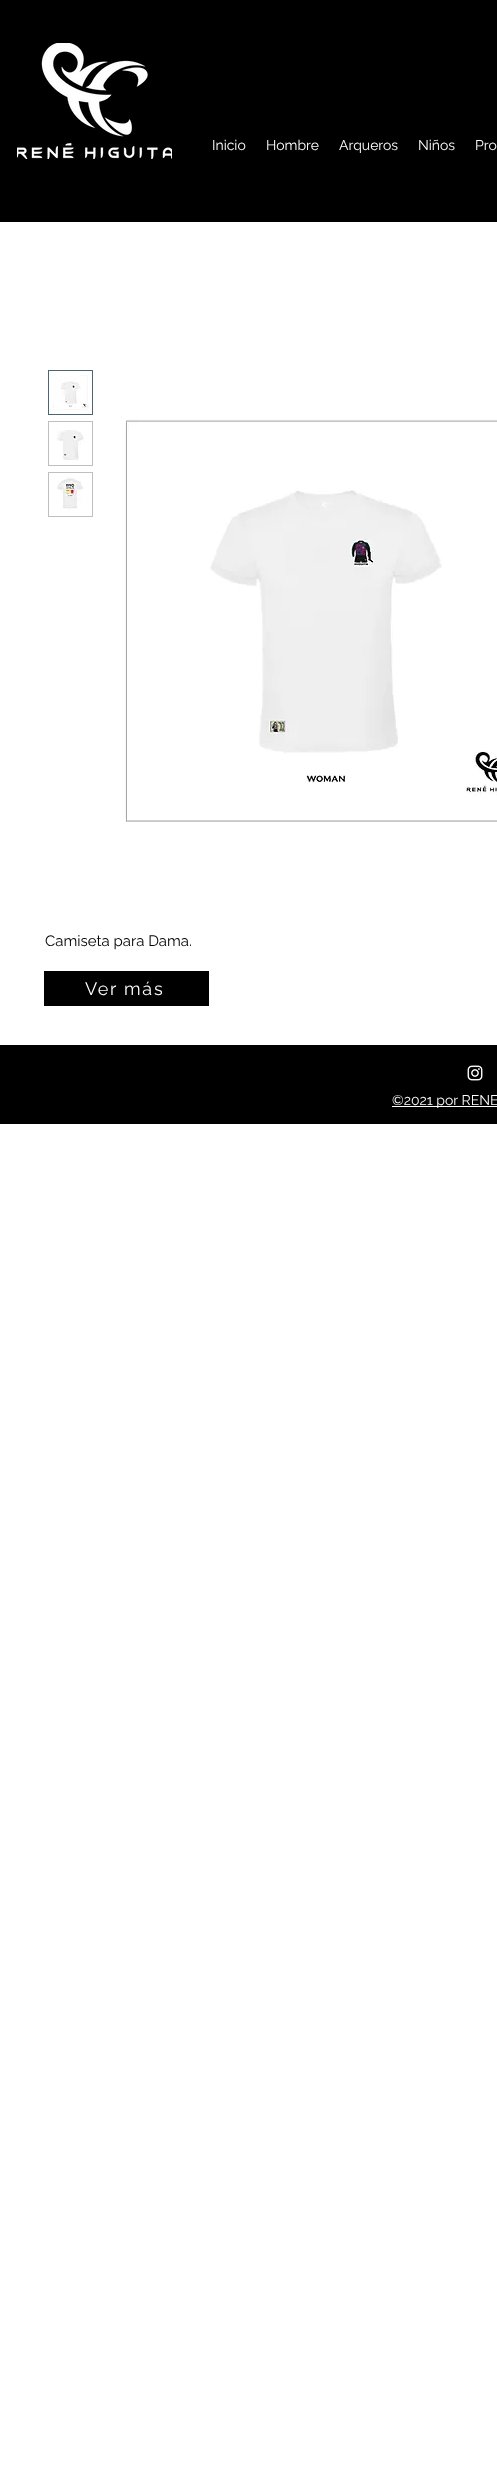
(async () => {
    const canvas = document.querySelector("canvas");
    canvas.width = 497;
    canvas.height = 2474;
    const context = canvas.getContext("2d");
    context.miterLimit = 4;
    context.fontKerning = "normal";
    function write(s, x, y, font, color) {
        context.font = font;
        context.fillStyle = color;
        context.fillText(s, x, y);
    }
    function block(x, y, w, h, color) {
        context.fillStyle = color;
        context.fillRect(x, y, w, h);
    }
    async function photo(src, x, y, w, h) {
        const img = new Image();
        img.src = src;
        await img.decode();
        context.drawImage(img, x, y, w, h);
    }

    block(0, 0, 497, 2474, "rgb(255, 255, 255)");
    block(0, 0, 497, 222, "rgb(0, 0, 0)");
    await photo("media/1.png", 17, 43, 155, 116);
    write("Inicio", 212, 150, "14px Raleway", "rgb(255, 255, 255)");
    write("Hombre", 266, 150, "14px Raleway", "rgb(255, 255, 255)");
    write("Arqueros", 339, 150, "14px Raleway", "rgb(255, 255, 255)");
    write("Niños", 418, 150, "14px Raleway", "rgb(255, 255, 255)");
    write("Pro", 475, 150, "14px Raleway", "rgb(255, 255, 255)");
    context.strokeStyle = "rgb(76, 100, 116)";
    context.strokeRect(48.5, 370.5, 44, 44);
    await photo("media/2.png", 49, 371, 43, 43);
    block(48, 421, 45, 45, "rgb(191, 191, 191)");
    await photo("media/3.png", 49, 422, 43, 43);
    block(48, 472, 45, 45, "rgb(191, 191, 191)");
    await photo("media/4.png", 49, 473, 43, 43);
    await photo("media/5.png", 125, 419, 372, 403);
    write("Camiseta para Dama.", 45, 946, "15px Raleway", "rgb(0, 0, 0)");
    block(44, 971, 165, 35, "rgb(0, 0, 0)");
    context.letterSpacing = "1.75px";
    write("Ver más", 85, 995, "18px Raleway", "rgb(255, 255, 255)");
    block(0, 1045, 497, 79, "rgb(0, 0, 0)");
    await photo("media/6.png", 467, 1065, 16, 16);
    block(392, 1106, 105, 1, "rgb(255, 255, 255)");
    context.letterSpacing = "0px";
    write("©2021 por RENE", 392, 1105, "14px Raleway", "rgb(255, 255, 255)");
})();
